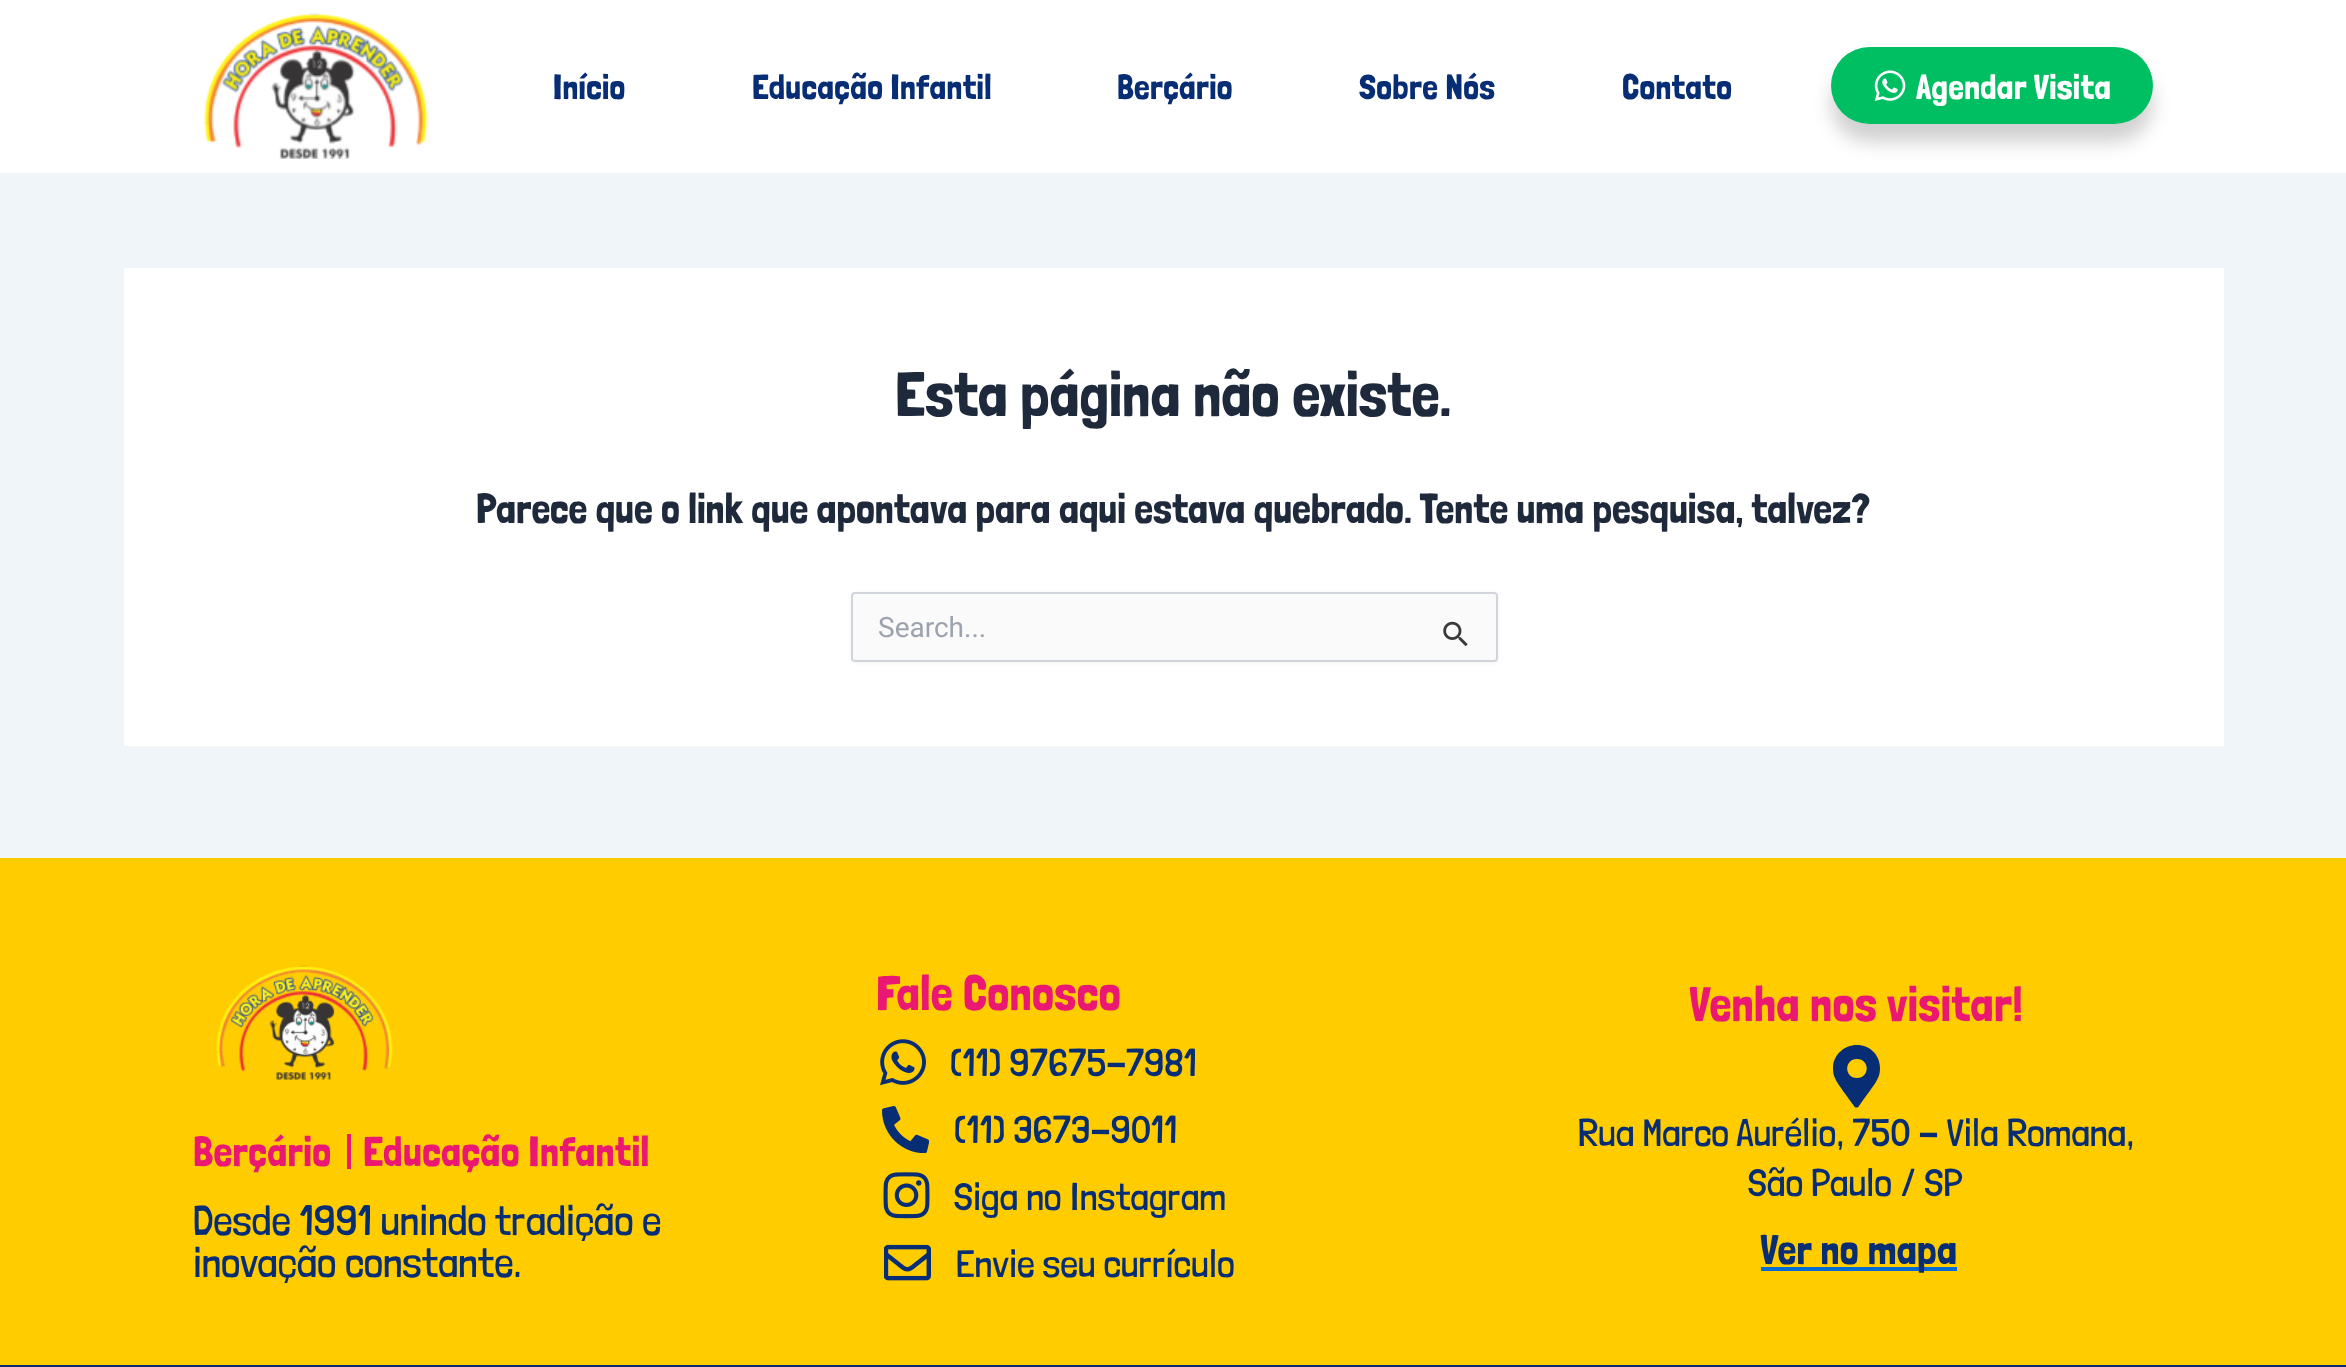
(async () => {
    const canvas = document.querySelector("canvas");
    canvas.width = 2346;
    canvas.height = 1367;
    const context = canvas.getContext("2d");
    context.miterLimit = 4;
    context.fontKerning = "normal";
    function write(s, x, y, font, color) {
        context.font = font;
        context.fillStyle = color;
        context.fillText(s, x, y);
    }
    function block(x, y, w, h, color) {
        context.fillStyle = color;
        context.fillRect(x, y, w, h);
    }
    function card(x, y, w, h, r, color) {
        context.fillStyle = color;
        context.beginPath();
        context.roundRect(x, y, w, h, r);
        context.fill();
    }
    async function photo(src, x, y, w, h) {
        const img = new Image();
        img.src = src;
        await img.decode();
        context.drawImage(img, x, y, w, h);
    }

    block(0, 0, 2346, 1367, "rgb(240, 245, 250)");
    block(0, 0, 2346, 173, "rgb(255, 255, 255)");
    await photo("media/1.png", 204, 13, 225, 146);
    context.letterSpacing = "0.35px";
    write("Início", 553, 99, "35px Londrina Solid", "rgb(7, 45, 117)");
    write("Educação Infantil", 752, 99, "35px Londrina Solid", "rgb(7, 45, 117)");
    write("Berçário", 1117, 99, "35px Londrina Solid", "rgb(7, 45, 117)");
    write("Sobre Nós", 1359, 99, "35px Londrina Solid", "rgb(7, 45, 117)");
    write("Contato", 1622, 99, "35px Londrina Solid", "rgb(7, 45, 117)");
    context.fillStyle = "rgba(0, 0, 0, 0.18)";
    context.filter = "blur(9px)";
    context.beginPath();
    context.roundRect(1831, 65, 322, 77, 38.5);
    context.fill();
    context.filter = "none";
    card(1831, 47, 322, 77, 38.5, "rgb(0, 191, 99)");
    await photo("media/2.png", 1874, 70, 32, 31);
    write("Agendar Visita", 1916, 99, "35px Londrina Solid", "rgb(255, 255, 255)");
    block(124, 268, 2100, 478, "rgb(255, 255, 255)");
    context.letterSpacing = "0px";
    write("Esta página não existe.", 895, 416, "63px Londrina Solid", "rgb(30, 41, 59)");
    write("Parece que o link que apontava para aqui estava quebrado. Tente uma pesquisa, talvez?", 476, 523, "42px Londrina Solid", "rgb(30, 41, 59)");
    context.fillStyle = "rgba(0, 0, 0, 0.05)";
    context.filter = "blur(2px)";
    context.beginPath();
    context.roundRect(851, 593, 647, 70, 4);
    context.fill();
    context.filter = "none";
    context.fillStyle = "rgb(250, 250, 250)";
    context.beginPath();
    context.roundRect(852, 593, 645, 68, 3);
    context.fill();
    context.strokeStyle = "rgb(209, 213, 219)";
    context.lineWidth = 2;
    context.stroke();
    write("Search...", 878, 637, "28px Roboto", "rgb(156, 163, 175)");
    await photo("media/3.png", 1443, 621, 25, 26);
    block(0, 858, 2346, 507, "rgb(255, 204, 0)");
    await photo("media/4.png", 216, 965, 177, 115);
    context.letterSpacing = "0.35px";
    write("Berçário", 193, 1166, "42px Londrina Solid", "rgb(234, 24, 115)");
    block(347, 1134, 4, 35, "rgb(234, 24, 115)");
    write("Educação Infantil", 363, 1166, "42px Londrina Solid", "rgb(234, 24, 115)");
    write("Desde 1991 unindo tradição e", 193, 1235, "300 42px Londrina Solid", "rgb(7, 45, 117)");
    write("inovação constante.", 193, 1277, "300 42px Londrina Solid", "rgb(7, 45, 117)");
    write("Fale Conosco", 876, 1010, "49px Londrina Solid", "rgb(234, 24, 115)");
    await photo("media/5.png", 880, 1039, 46, 47);
    write("(11) 97675-7981", 950, 1076, "300 38.5px Londrina Solid", "rgb(7, 45, 117)");
    await photo("media/6.png", 882, 1106, 47, 47);
    write("(11) 3673-9011", 954, 1143, "300 38.5px Londrina Solid", "rgb(7, 45, 117)");
    await photo("media/7.png", 883, 1172, 47, 47);
    write("Siga no Instagram", 954, 1210, "300 38.5px Londrina Solid", "rgb(7, 45, 117)");
    await photo("media/8.png", 884, 1244, 47, 37);
    write("Envie seu currículo", 956, 1277, "300 38.5px Londrina Solid", "rgb(7, 45, 117)");
    write("Venha nos visitar!", 1689, 1021, "49px Londrina Solid", "rgb(234, 24, 115)");
    context.fillStyle = "rgb(7, 45, 117)";
    context.beginPath();
    context.moveTo(1854, 1106);
    context.bezierCurveTo(1836, 1081, 1833, 1078, 1833, 1068);
    context.bezierCurveTo(1833, 1055, 1844, 1045, 1857, 1045);
    context.bezierCurveTo(1870, 1045, 1880, 1055, 1880, 1068);
    context.bezierCurveTo(1880, 1078, 1877, 1081, 1859, 1106);
    context.bezierCurveTo(1858, 1108, 1855, 1108, 1854, 1106);
    context.closePath();
    context.moveTo(1857, 1078);
    context.bezierCurveTo(1870, 1078, 1870, 1059, 1857, 1059);
    context.bezierCurveTo(1844, 1059, 1844, 1078, 1857, 1078);
    context.closePath();
    context.fill();
    write("Rua Marco Aurélio, 750 - Vila Romana,", 1578, 1146, "300 38.5px Londrina Solid", "rgb(7, 45, 117)");
    write("São Paulo / SP", 1748, 1196, "300 38.5px Londrina Solid", "rgb(7, 45, 117)");
    block(1761, 1267, 196, 4, "rgb(4, 107, 210)");
    write("Ver no mapa", 1760, 1264, "42px Londrina Solid", "rgb(7, 45, 117)");
    block(0, 1365, 2346, 2, "rgb(7, 45, 117)");
})();
